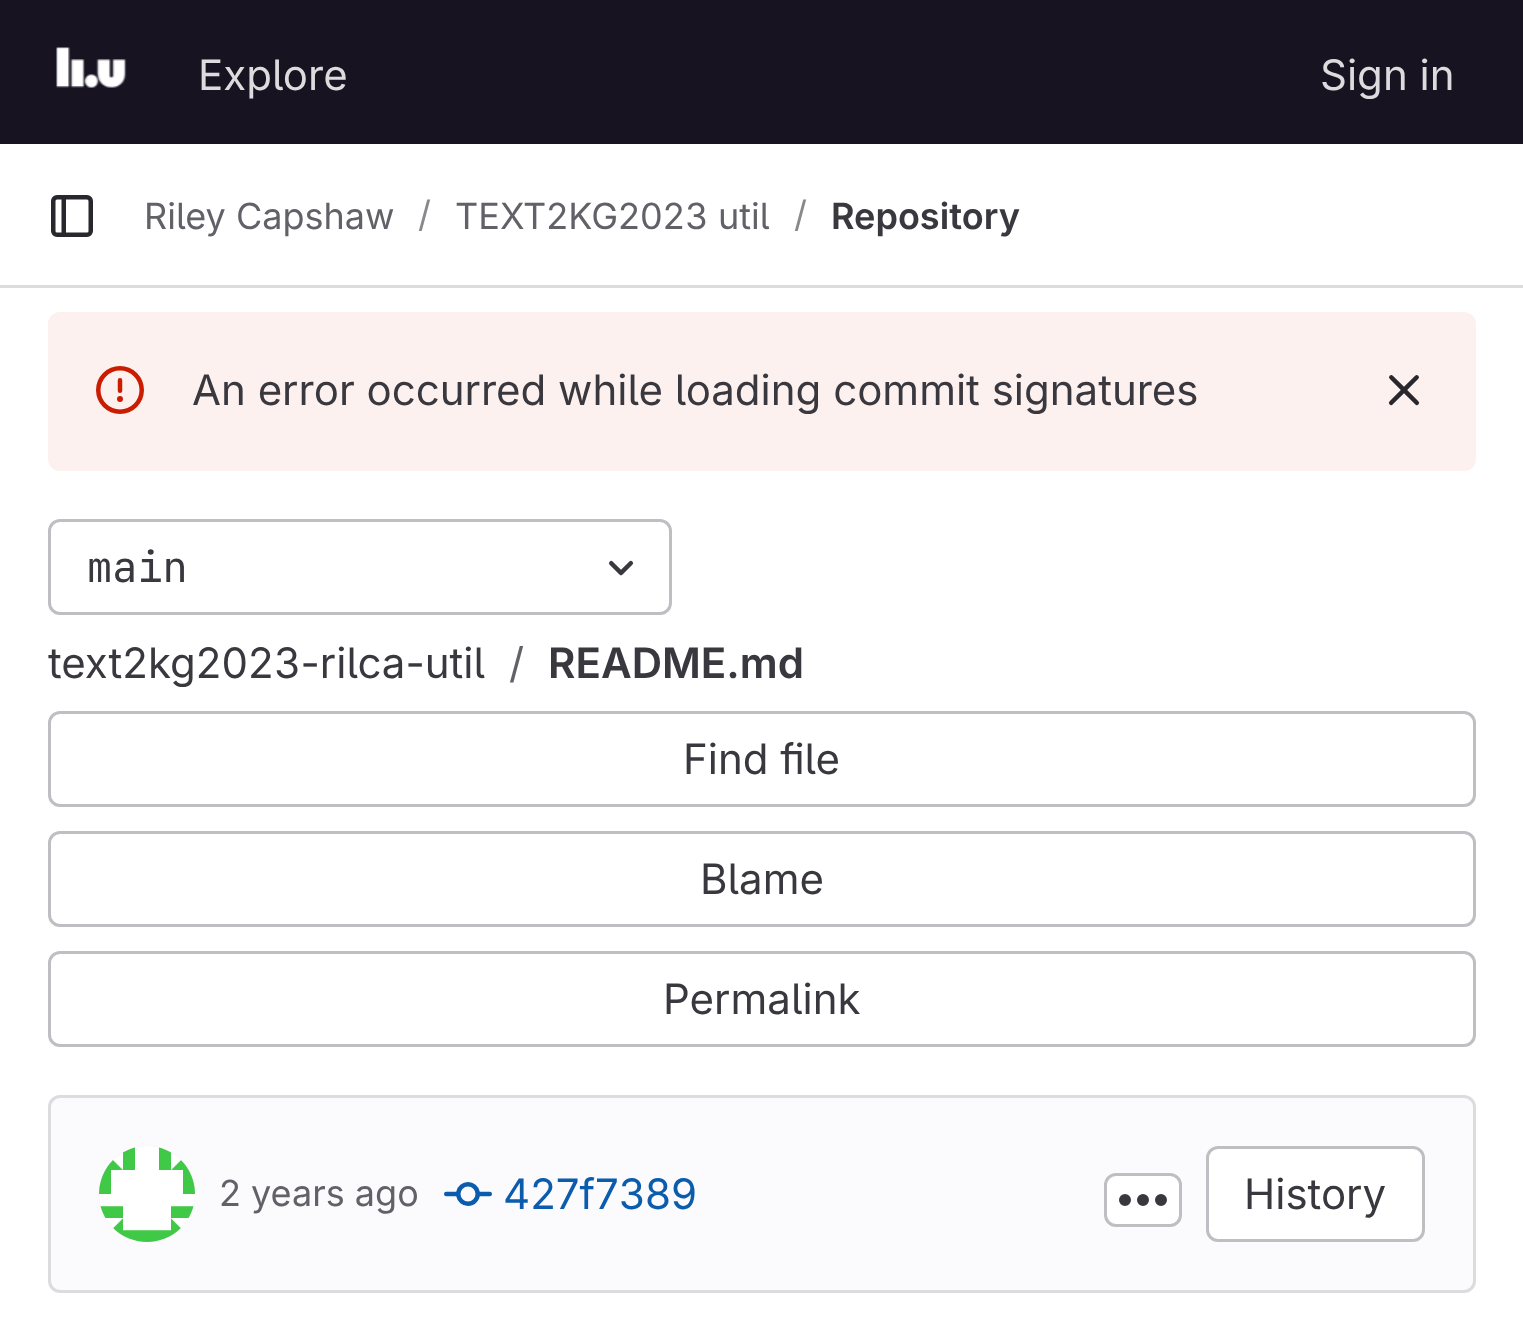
(async () => {
    const canvas = document.querySelector("canvas");
    canvas.width = 1523;
    canvas.height = 1332;
    const context = canvas.getContext("2d");
    context.miterLimit = 4;
    context.fontKerning = "normal";
    function write(s, x, y, font, color) {
        context.font = font;
        context.fillStyle = color;
        context.fillText(s, x, y);
    }
    function block(x, y, w, h, color) {
        context.fillStyle = color;
        context.fillRect(x, y, w, h);
    }
    function card(x, y, w, h, r, color) {
        context.fillStyle = color;
        context.beginPath();
        context.roundRect(x, y, w, h, r);
        context.fill();
    }
    async function photo(src, x, y, w, h) {
        const img = new Image();
        img.src = src;
        await img.decode();
        context.drawImage(img, x, y, w, h);
    }

    block(0, 0, 1523, 1332, "rgb(255, 255, 255)");
    block(0, 0, 1523, 144, "rgb(23, 19, 33)");
    await photo("media/1.png", 56, 47, 71, 41);
    write("Explore", 198, 90, "42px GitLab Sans", "rgb(220, 220, 222)");
    write("Sign in", 1320, 90, "42px GitLab Sans", "rgb(220, 220, 222)");
    block(0, 285, 1523, 3, "rgb(220, 220, 222)");
    await photo("media/2.png", 51, 195, 42, 42);
    write("Riley Capshaw", 144, 229, "36px GitLab Sans", "rgb(98, 97, 104)");
    write("/", 418, 227, "36px GitLab Sans", "rgb(137, 136, 141)");
    write("TEXT2KG2023 util", 455, 229, "36px GitLab Sans", "rgb(98, 97, 104)");
    write("/", 794, 227, "36px GitLab Sans", "rgb(137, 136, 141)");
    write("Repository", 831, 229, "600 36px GitLab Sans", "rgb(58, 56, 63)");
    card(48, 312, 1428, 159, 12, "rgb(252, 241, 239)");
    await photo("media/3.png", 96, 366, 48, 48);
    write("An error occurred while loading commit signatures", 192, 405, "42px GitLab Sans", "rgb(58, 56, 63)");
    await photo("media/4.png", 1388, 375, 32, 31);
    context.beginPath();
    context.roundRect(49.5, 520.5, 621, 93, 10.5);
    context.strokeStyle = "rgb(191, 191, 195)";
    context.lineWidth = 3;
    context.stroke();
    write("main", 87, 582, "42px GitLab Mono", "rgb(58, 56, 63)");
    await photo("media/5.png", 608, 560, 26, 16);
    write("text2kg2023-rilca-util", 48, 678, "42px GitLab Sans", "rgb(58, 56, 63)");
    write("/", 509, 678, "42px GitLab Sans", "rgb(98, 97, 104)");
    write("README.md", 548, 678, "600 42px GitLab Sans", "rgb(58, 56, 63)");
    context.beginPath();
    context.roundRect(49.5, 712.5, 1425, 93, 10.5);
    context.stroke();
    write("Find file", 683, 774, "42px GitLab Sans", "rgb(58, 56, 63)");
    context.beginPath();
    context.roundRect(49.5, 832.5, 1425, 93, 10.5);
    context.stroke();
    write("Blame", 700, 894, "42px GitLab Sans", "rgb(58, 56, 63)");
    context.beginPath();
    context.roundRect(49.5, 952.5, 1425, 93, 10.5);
    context.stroke();
    write("Permalink", 663, 1014, "42px GitLab Sans", "rgb(58, 56, 63)");
    context.fillStyle = "rgb(251, 250, 253)";
    context.beginPath();
    context.roundRect(49.5, 1096.5, 1425, 195, 10.5);
    context.fill();
    context.strokeStyle = "rgb(220, 220, 222)";
    context.stroke();
    context.beginPath();
    context.arc(147, 1194, 46.5, 0, Math.PI * 2);
    context.strokeStyle = "rgb(231, 230, 233)";
    context.stroke();
    await photo("media/6.png", 99, 1146, 96, 96);
    write("2 years ago", 219, 1206, "36px GitLab Sans", "rgb(98, 97, 104)");
    await photo("media/7.png", 444, 1182, 48, 24);
    write("427f7389", 503, 1209, "42px GitLab Sans", "rgb(11, 92, 173)");
    context.fillStyle = "rgb(255, 255, 255)";
    context.beginPath();
    context.roundRect(1105.5, 1174.5, 75, 51, 10.5);
    context.fill();
    context.strokeStyle = "rgb(191, 191, 195)";
    context.stroke();
    await photo("media/8.png", 1119, 1194, 48, 12);
    context.beginPath();
    context.roundRect(1207.5, 1147.5, 216, 93, 10.5);
    context.fill();
    context.stroke();
    write("History", 1244, 1209, "42px GitLab Sans", "rgb(58, 56, 63)");
})();
